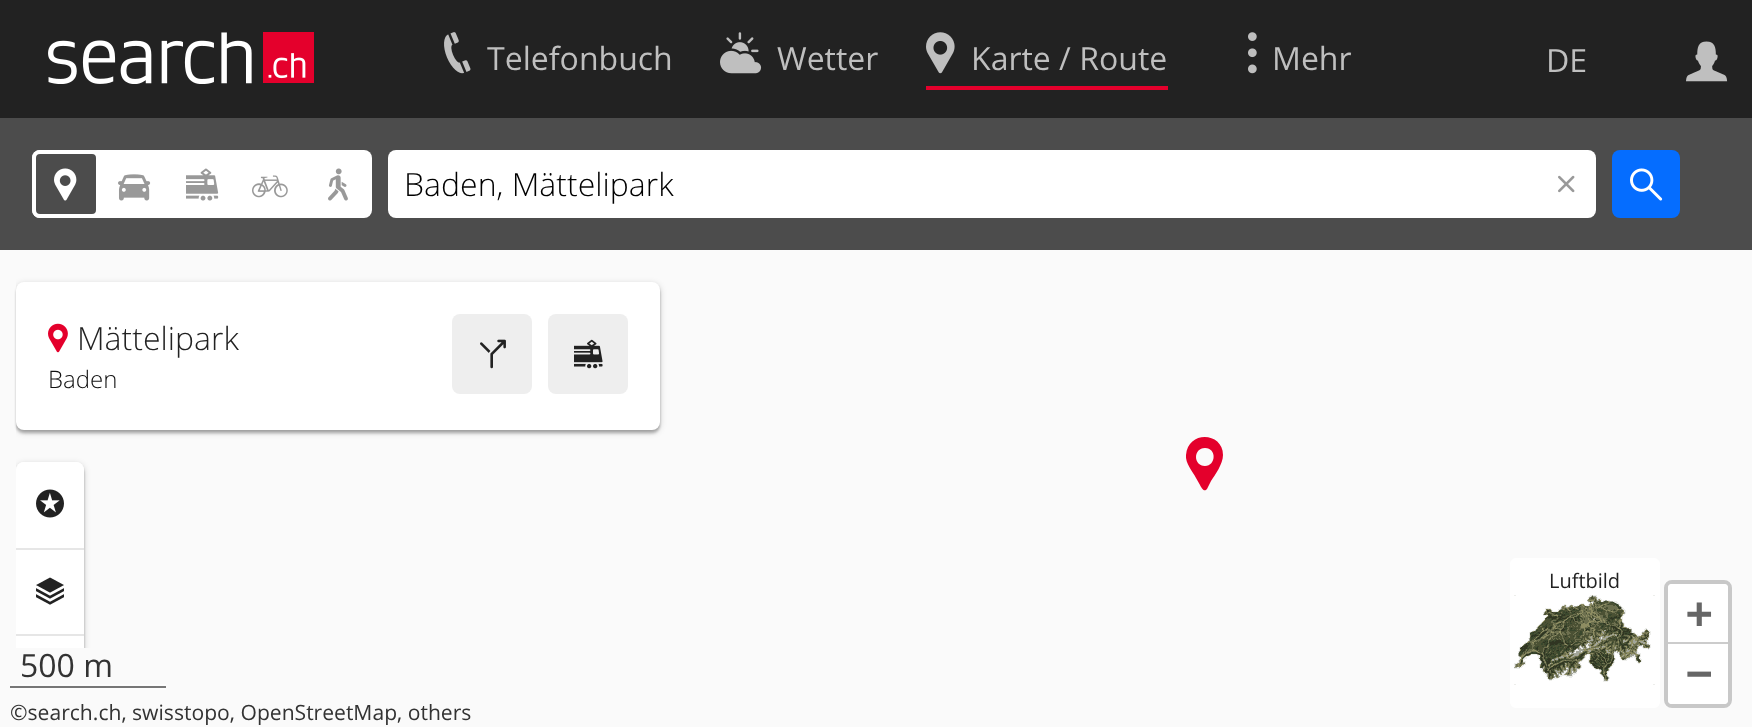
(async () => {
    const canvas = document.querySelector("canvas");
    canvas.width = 1752;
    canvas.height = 727;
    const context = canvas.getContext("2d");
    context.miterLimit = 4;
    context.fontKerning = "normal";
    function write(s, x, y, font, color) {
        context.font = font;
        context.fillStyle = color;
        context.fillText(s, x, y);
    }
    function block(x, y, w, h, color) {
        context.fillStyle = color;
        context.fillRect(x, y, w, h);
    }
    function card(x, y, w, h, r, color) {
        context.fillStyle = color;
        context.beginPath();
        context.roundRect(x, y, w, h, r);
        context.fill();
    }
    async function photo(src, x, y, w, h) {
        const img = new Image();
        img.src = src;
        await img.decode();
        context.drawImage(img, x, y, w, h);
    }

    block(0, 0, 1752, 727, "rgb(250, 250, 250)");
    block(0, 0, 1752, 118, "rgb(34, 34, 34)");
    await photo("media/1.png", 48, 32, 266, 52);
    await photo("media/2.png", 444, 32, 27, 42);
    write("Telefonbuch", 487, 70, "32px Open Sans", "rgb(191, 191, 191)");
    await photo("media/3.png", 720, 32, 42, 42);
    write("Wetter", 777, 70, "32px Open Sans", "rgb(191, 191, 191)");
    block(926, 86, 242, 4, "rgb(228, 0, 44)");
    await photo("media/4.png", 926, 32, 29, 42);
    write("Karte / Route", 971, 70, "32px Open Sans", "rgb(191, 191, 191)");
    await photo("media/5.png", 1248, 32, 9, 42);
    write("Mehr", 1272, 70, "32px Open Sans", "rgb(191, 191, 191)");
    write("DE", 1546, 72, "32px Open Sans", "rgb(191, 191, 191)");
    await photo("media/6.png", 1686, 41, 42, 41);
    block(0, 118, 1752, 132, "rgb(76, 76, 76)");
    card(32, 150, 340, 68, 8, "rgb(255, 255, 255)");
    context.fillStyle = "rgb(76, 76, 76)";
    context.beginPath();
    context.roundRect(34, 152, 64, 64, 6);
    context.fill();
    context.strokeStyle = "rgb(255, 255, 255)";
    context.lineWidth = 4;
    context.stroke();
    await photo("media/7.png", 54, 168, 23, 33);
    await photo("media/8.png", 118, 174, 33, 27);
    await photo("media/9.png", 186, 168, 33, 33);
    await photo("media/10.png", 252, 175, 36, 23);
    await photo("media/11.png", 328, 168, 20, 33);
    card(388, 150, 1208, 68, 8, "rgb(255, 255, 255)");
    write("Baden, Mättelipark", 404, 196, "300 32px Open Sans", "rgb(0, 0, 0)");
    await photo("media/12.png", 1558, 175, 17, 18);
    card(1612, 150, 68, 68, 8, "rgb(5, 109, 255)");
    await photo("media/13.png", 1630, 168, 33, 33);
    context.save();
    context.beginPath();
    context.rect(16, 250, 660, 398);
    context.clip();
    context.fillStyle = "rgba(0, 0, 0, 0.2)";
    context.filter = "blur(3px)";
    context.beginPath();
    context.roundRect(16, 284, 644, 148, 8);
    context.fill();
    context.filter = "none";
    context.restore();
    context.fillStyle = "rgba(0, 0, 0, 0.12)";
    context.filter = "blur(1px)";
    context.beginPath();
    context.roundRect(16, 286, 644, 148, 8);
    context.fill();
    context.filter = "none";
    context.fillStyle = "rgba(0, 0, 0, 0.14)";
    context.filter = "blur(1px)";
    context.beginPath();
    context.roundRect(16, 284, 644, 148, 8);
    context.fill();
    context.filter = "none";
    card(16, 282, 644, 148, 8, "rgb(255, 255, 255)");
    await photo("media/14.png", 48, 323, 20, 30);
    write("Mättelipark", 77, 350, "300 32px Open Sans", "rgb(34, 34, 34)");
    card(452, 314, 80, 80, 8, "rgb(238, 238, 238)");
    await photo("media/15.png", 480, 339, 26, 30);
    card(548, 314, 80, 80, 8, "rgb(238, 238, 238)");
    await photo("media/16.png", 574, 339, 29, 30);
    write("Baden", 48, 388, "300 24px Open Sans", "rgb(17, 17, 17)");
    block(10, 688, 156, 2, "rgb(253, 253, 253)");
    block(10, 684, 156, 2, "rgb(253, 253, 253)");
    block(10, 686, 156, 2, "rgb(119, 119, 119)");
    context.save();
    context.beginPath();
    context.rect(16, 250, 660, 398);
    context.clip();
    context.fillStyle = "rgba(0, 0, 0, 0.2)";
    context.filter = "blur(3px)";
    context.beginPath();
    context.roundRect(16, 464, 68, 258, 8);
    context.fill();
    context.filter = "none";
    context.fillStyle = "rgba(0, 0, 0, 0.12)";
    context.filter = "blur(1px)";
    context.beginPath();
    context.roundRect(16, 466, 68, 258, 8);
    context.fill();
    context.filter = "none";
    context.fillStyle = "rgba(0, 0, 0, 0.14)";
    context.filter = "blur(1px)";
    context.beginPath();
    context.roundRect(16, 464, 68, 258, 8);
    context.fill();
    context.filter = "none";
    context.restore();
    context.fillStyle = "rgb(255, 255, 255)";
    context.beginPath();
    context.roundRect(16, 462, 68, 186, [8, 8, 0, 0]);
    context.fill();
    context.beginPath();
    context.roundRect(16, 462, 68, 88, [8, 8, 0, 0]);
    context.fill();
    block(16, 548, 68, 2, "rgb(230, 230, 230)");
    await photo("media/17.png", 36, 489, 28, 29);
    block(16, 634, 68, 2, "rgb(230, 230, 230)");
    await photo("media/18.png", 36, 577, 28, 28);
    card(1510, 558, 150, 150, 6, "rgb(255, 255, 255)");
    await photo("media/19.png", 1514, 595, 141, 90);
    write("Luftbild", 1549, 588, "20px Open Sans", "rgb(34, 34, 34)");
    context.fillStyle = "rgb(228, 0, 44)";
    context.beginPath();
    context.moveTo(1223, 455);
    context.bezierCurveTo(1223, 432, 1188, 430, 1186, 455);
    context.bezierCurveTo(1185, 463, 1193, 472, 1196, 478);
    context.lineTo(1200, 485);
    context.bezierCurveTo(1201, 487, 1204, 493, 1207, 489);
    context.lineTo(1211, 481);
    context.bezierCurveTo(1215, 475, 1223, 464, 1223, 455);
    context.closePath();
    context.moveTo(1205, 466);
    context.bezierCurveTo(1193, 466, 1193, 448, 1205, 448);
    context.bezierCurveTo(1217, 448, 1216, 466, 1205, 466);
    context.closePath();
    context.fill();
    context.beginPath();
    context.roundRect(1666, 582, 64, 124, 6);
    context.strokeStyle = "rgb(200, 200, 200)";
    context.stroke();
    context.fillStyle = "rgb(255, 255, 255)";
    context.beginPath();
    context.roundRect(1668, 584, 60, 60, [4, 4, 0, 0]);
    context.fill();
    block(1668, 642, 60, 2, "rgb(204, 204, 204)");
    write("+", 1686, 628, "bold 44px DejaVu Sans Mono", "rgb(102, 102, 102)");
    context.fillStyle = "rgb(255, 255, 255)";
    context.beginPath();
    context.roundRect(1668, 644, 60, 60, [0, 0, 4, 4]);
    context.fill();
    write("−", 1686, 688, "bold 44px DejaVu Sans Mono", "rgb(102, 102, 102)");
    write("500 m", 20, 677, "32px Open Sans", "rgb(51, 51, 51)");
    write("©search.ch, swisstopo, OpenStreetMap, others", 10, 720, "21.1px Open Sans", "rgb(51, 51, 51)");
})();
